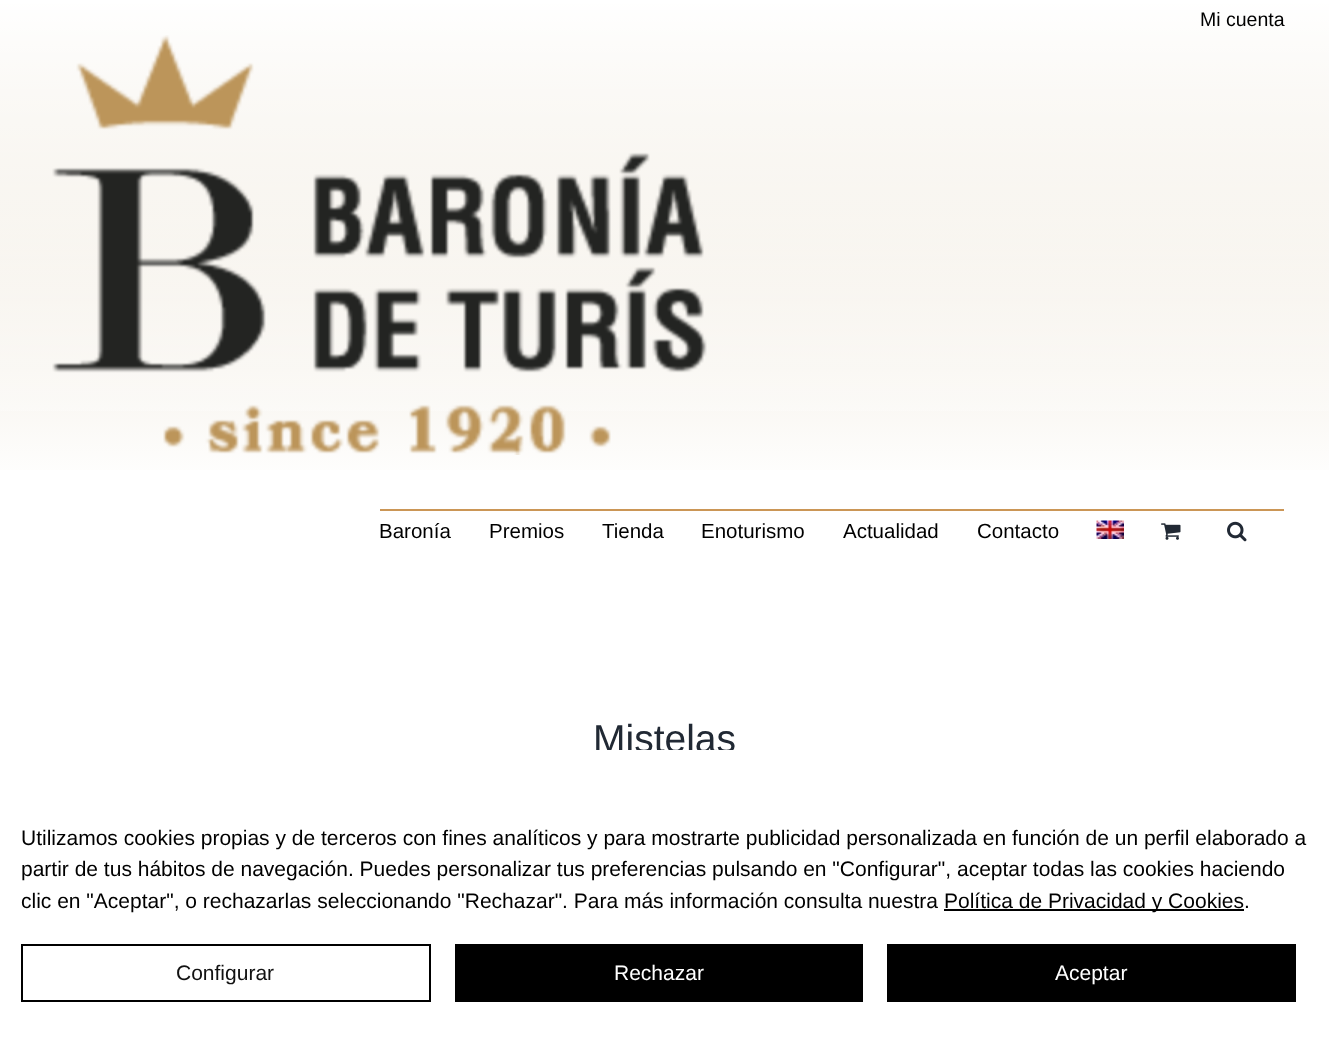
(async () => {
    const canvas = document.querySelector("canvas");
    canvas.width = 1329;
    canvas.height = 1043;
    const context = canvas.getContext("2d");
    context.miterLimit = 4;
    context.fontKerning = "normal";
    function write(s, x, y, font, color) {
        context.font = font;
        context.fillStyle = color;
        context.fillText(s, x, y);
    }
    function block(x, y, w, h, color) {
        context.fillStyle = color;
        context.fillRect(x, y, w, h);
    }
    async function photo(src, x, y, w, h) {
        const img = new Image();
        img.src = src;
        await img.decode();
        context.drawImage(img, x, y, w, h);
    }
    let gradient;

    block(0, 0, 1329, 1043, "rgb(255, 255, 255)");
    gradient = context.createLinearGradient(665, -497, 665, 552);
    gradient.addColorStop(0, "rgb(196, 171, 123)");
    gradient.addColorStop(0.94, "rgb(255, 255, 255)");
    context.fillStyle = gradient;
    context.fillRect(0, 3, 1329, 467);
    gradient = context.createLinearGradient(665, 0, 665, 552);
    gradient.addColorStop(0, "rgb(255, 255, 255)");
    gradient.addColorStop(1, "rgba(255, 255, 255, 0)");
    context.fillStyle = gradient;
    context.fillRect(0, 3, 1329, 408);
    write("Mi cuenta", 1200, 26, "19.5px Liberation Sans", "rgb(0, 0, 0)");
    await photo("media/1.png", 52, 35, 655, 420);
    block(380, 509, 904, 2, "rgb(203, 150, 86)");
    write("Baronía", 379, 538, "20.5px Liberation Sans", "rgb(0, 0, 0)");
    write("Premios", 489, 538, "20.5px Liberation Sans", "rgb(0, 0, 0)");
    write("Tienda", 602, 538, "20.5px Liberation Sans", "rgb(0, 0, 0)");
    write("Enoturismo", 701, 538, "20.5px Liberation Sans", "rgb(0, 0, 0)");
    write("Actualidad", 843, 538, "20.5px Liberation Sans", "rgb(0, 0, 0)");
    write("Contacto", 977, 538, "20.5px Liberation Sans", "rgb(0, 0, 0)");
    await photo("media/2.png", 1096, 520, 28, 19);
    await photo("media/3.png", 1161, 523, 20, 17);
    await photo("media/4.png", 1227, 521, 20, 21);
    write("Mistelas", 593, 752, "39px Liberation Sans", "rgb(33, 41, 52)");
    block(596, 750, 137, 3, "rgb(255, 255, 255)");
    write("Utilizamos cookies propias y de terceros con fines analíticos y para mostrarte publicidad personalizada en función de un perfil elaborado a", 21, 845, "21px Liberation Sans", "rgb(0, 0, 0)");
    write("partir de tus hábitos de navegación. Puedes personalizar tus preferencias pulsando en \"Configurar\", aceptar todas las cookies haciendo", 21, 876, "21px Liberation Sans", "rgb(0, 0, 0)");
    write("clic en \"Aceptar\", o rechazarlas seleccionando \"Rechazar\". Para más información consulta nuestra", 21, 908, "21px Liberation Sans", "rgb(0, 0, 0)");
    block(944, 909, 300, 2, "rgb(0, 0, 0)");
    write("Política de Privacidad y Cookies.", 944, 908, "21px Liberation Sans", "rgb(0, 0, 0)");
    context.strokeStyle = "rgb(0, 0, 0)";
    context.lineWidth = 2;
    context.strokeRect(22, 945, 408, 56);
    write("Configurar", 176, 980, "21px Liberation Sans", "rgb(17, 17, 17)");
    block(455, 944, 408, 58, "rgb(0, 0, 0)");
    write("Rechazar", 614, 980, "21px Liberation Sans", "rgb(255, 255, 255)");
    block(887, 944, 409, 58, "rgb(0, 0, 0)");
    write("Aceptar", 1055, 980, "21px Liberation Sans", "rgb(255, 255, 255)");
})();
